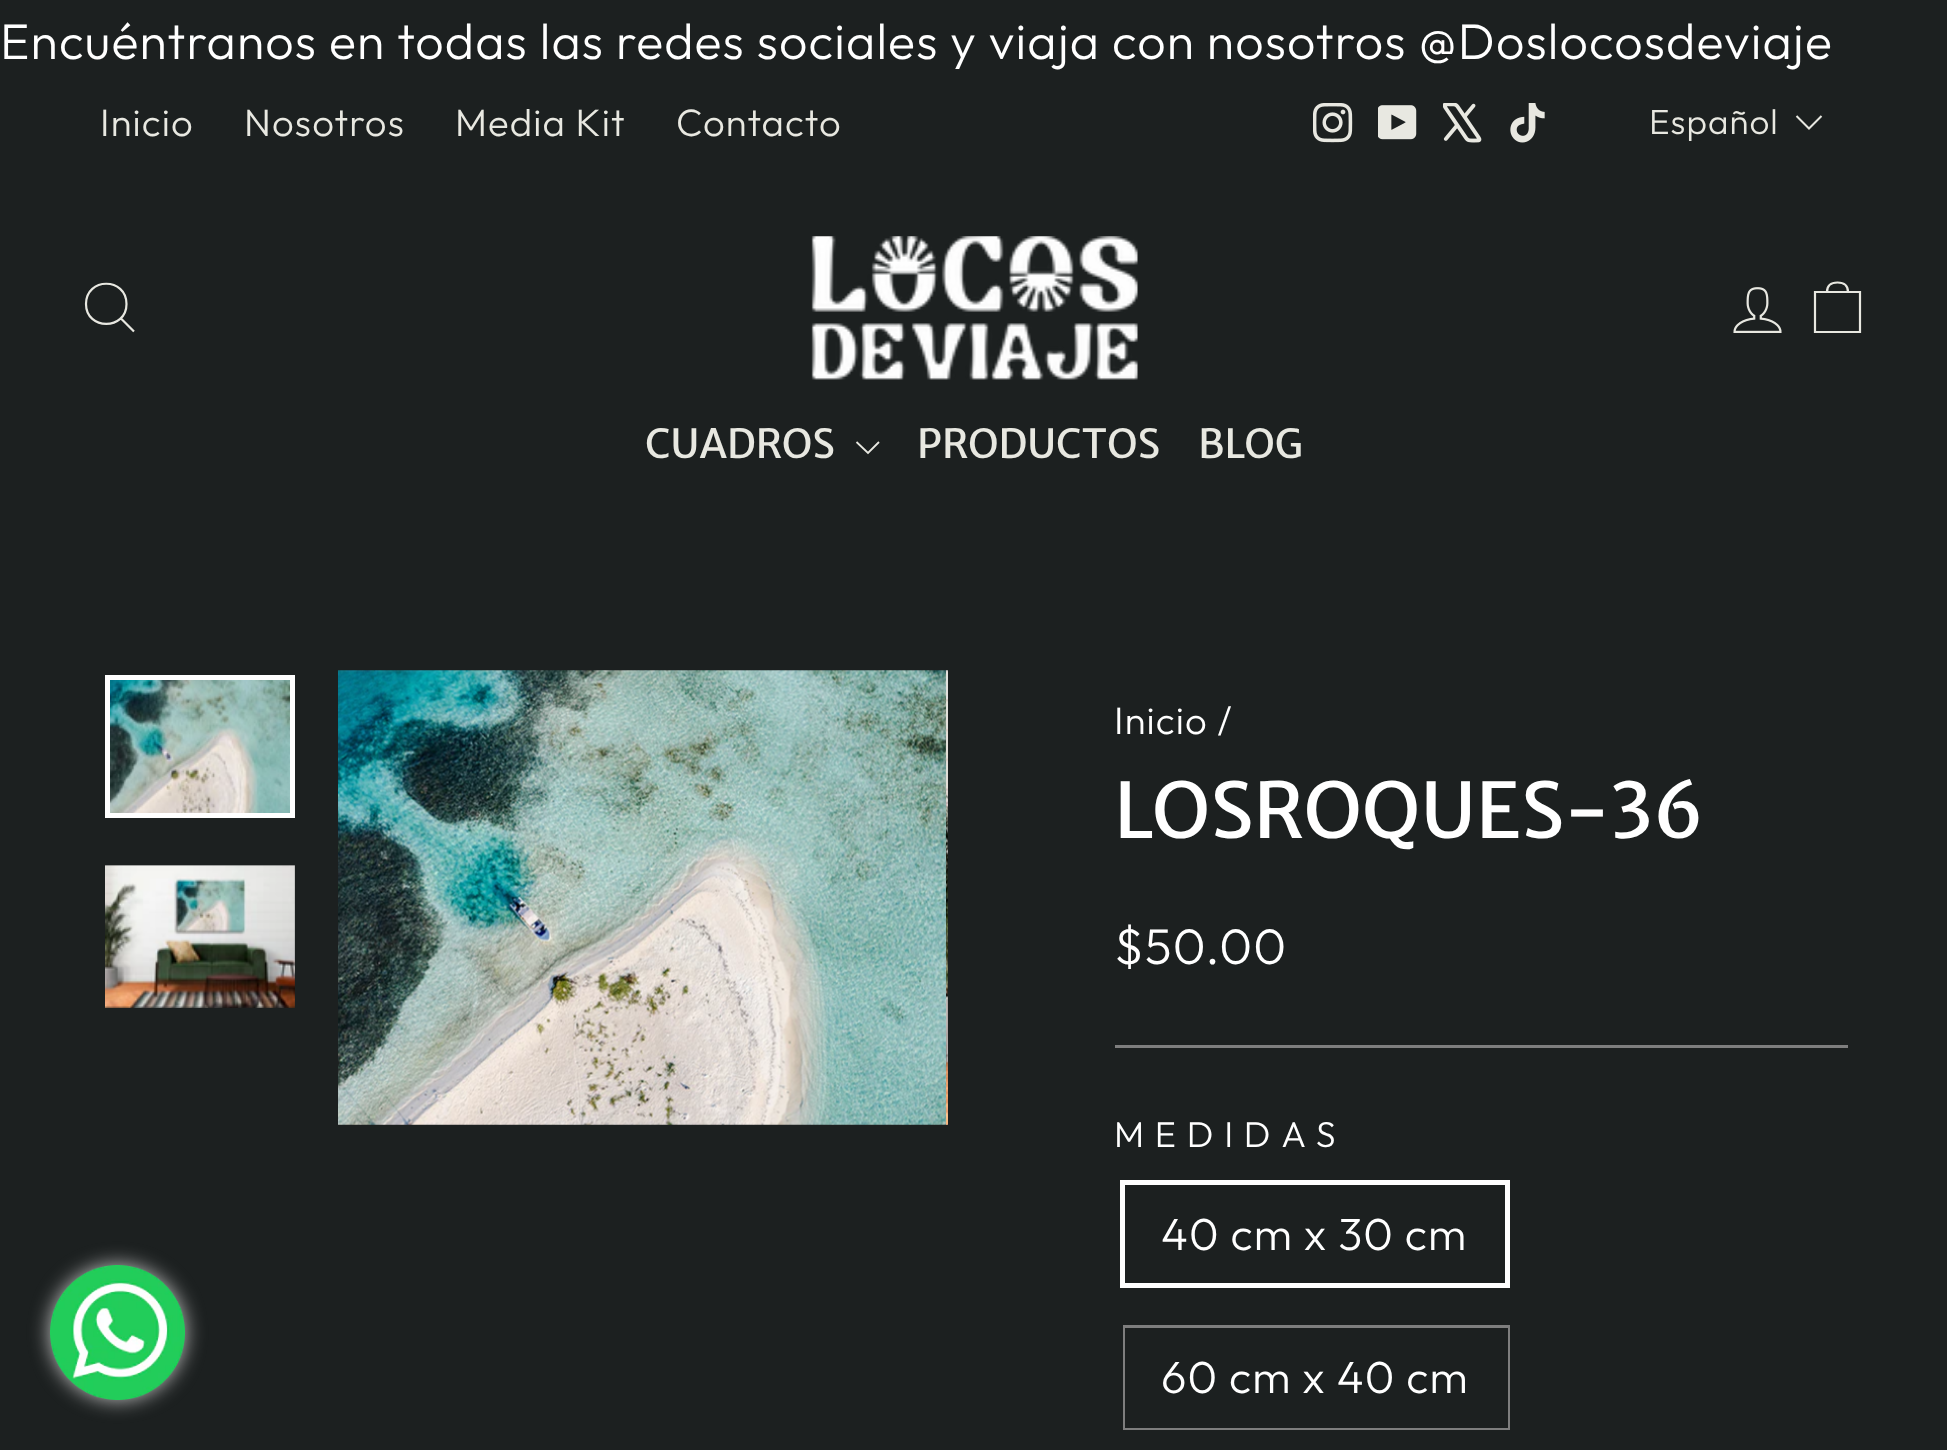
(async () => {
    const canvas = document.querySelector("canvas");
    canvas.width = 1947;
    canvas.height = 1450;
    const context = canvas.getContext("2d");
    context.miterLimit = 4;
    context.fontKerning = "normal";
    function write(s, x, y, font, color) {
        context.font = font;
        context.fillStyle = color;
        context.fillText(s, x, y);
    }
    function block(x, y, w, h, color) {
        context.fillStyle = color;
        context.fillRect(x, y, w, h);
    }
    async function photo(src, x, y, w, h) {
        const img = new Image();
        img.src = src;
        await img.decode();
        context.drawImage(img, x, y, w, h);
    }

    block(0, 0, 1947, 1450, "rgb(28, 32, 32)");
    context.letterSpacing = "1.12px";
    write("Encuéntranos en todas las redes sociales y viaja con nosotros @Doslocosdeviaje", 0, 59, "300 50px Outfit", "rgb(255, 255, 255)");
    write("Inicio", 100, 136, "300 38.25px Outfit", "rgb(232, 232, 225)");
    write("Nosotros", 244, 136, "300 38.25px Outfit", "rgb(232, 232, 225)");
    write("Media Kit", 455, 136, "300 38.25px Outfit", "rgb(232, 232, 225)");
    write("Contacto", 676, 136, "300 38.25px Outfit", "rgb(232, 232, 225)");
    await photo("media/1.png", 1313, 103, 40, 40);
    await photo("media/2.png", 1378, 105, 39, 35);
    await photo("media/3.png", 1443, 103, 39, 40);
    await photo("media/4.png", 1510, 103, 35, 40);
    context.letterSpacing = "1px";
    write("Español", 1649, 134, "300 35px Outfit", "rgb(232, 232, 225)");
    context.beginPath();
    context.moveTo(1796.5, 116);
    context.lineTo(1809, 128.5);
    context.lineTo(1821.5, 116);
    context.strokeStyle = "rgb(232, 232, 225)";
    context.lineWidth = 2;
    context.stroke();
    context.beginPath();
    context.moveTo(126.5, 304);
    context.bezierCurveTo(126.5, 330.5, 86, 330.5, 86, 304);
    context.bezierCurveTo(86, 277, 126.5, 277, 126.5, 304);
    context.closePath();
    context.moveTo(134, 331.5);
    context.lineTo(121, 318.5);
    context.lineWidth = 2.2;
    context.stroke();
    await photo("media/5.png", 811, 236, 327, 144);
    await photo("media/6.png", 1733, 287, 49, 46);
    context.beginPath();
    context.moveTo(1815, 292);
    context.lineTo(1860, 292);
    context.lineTo(1860, 332);
    context.lineTo(1815, 332);
    context.closePath();
    context.moveTo(1827, 292);
    context.bezierCurveTo(1827, 284.5, 1831.5, 282.5, 1837.5, 282.5);
    context.bezierCurveTo(1843.5, 282.5, 1848, 284.5, 1848, 292);
    context.stroke();
    context.letterSpacing = "0px";
    write("CUADROS", 645, 458, "40px Merriweather Sans", "rgb(232, 232, 225)");
    context.beginPath();
    context.moveTo(856.5, 442);
    context.lineTo(868, 453);
    context.lineTo(879, 442);
    context.lineWidth = 1.8;
    context.stroke();
    write("PRODUCTOS", 917, 458, "40px Merriweather Sans", "rgb(232, 232, 225)");
    write("BLOG", 1198, 458, "40px Merriweather Sans", "rgb(232, 232, 225)");
    await photo("media/7.png", 110, 680, 180, 133);
    context.strokeStyle = "rgb(255, 255, 255)";
    context.lineWidth = 5;
    context.strokeRect(107.5, 677.5, 185, 138);
    await photo("media/8.png", 105, 865, 190, 143);
    await photo("media/9.png", 338, 670, 610, 455);
    await photo("media/10.png", 946, 670, 2, 455);
    context.letterSpacing = "1.12px";
    write("Inicio /", 1114, 734, "300 38.25px Outfit", "rgb(255, 255, 255)");
    context.letterSpacing = "0px";
    write("LOSROQUES-36", 1114, 838, "76.5px Merriweather Sans", "rgb(255, 255, 255)");
    context.letterSpacing = "1.12px";
    write("$50.00", 1114, 964, "300 50px Outfit", "rgb(255, 255, 255)");
    block(1115, 1045, 733, 3, "rgb(126, 126, 126)");
    context.letterSpacing = "10.75px";
    write("MEDIDAS", 1114, 1147, "300 36px Outfit", "rgb(255, 255, 255)");
    context.strokeRect(1122.5, 1182.5, 385, 103);
    context.letterSpacing = "1.12px";
    write("40 cm x 30 cm", 1161, 1250, "300 45px Outfit", "rgb(255, 255, 255)");
    context.strokeStyle = "rgb(126, 126, 126)";
    context.lineWidth = 3;
    context.strokeRect(1124.5, 1326.5, 384, 102);
    block(1125, 1328, 383, 100, "rgb(28, 32, 32)");
    write("60 cm x 40 cm", 1161, 1393, "300 45px Outfit", "rgb(255, 255, 255)");
    context.fillStyle = "rgb(194, 194, 194)";
    context.filter = "blur(10px)";
    context.beginPath();
    context.roundRect(50, 1265, 135, 135, 67.5);
    context.fill();
    context.filter = "none";
    await photo("media/11.png", 50, 1265, 135, 135);
})();
